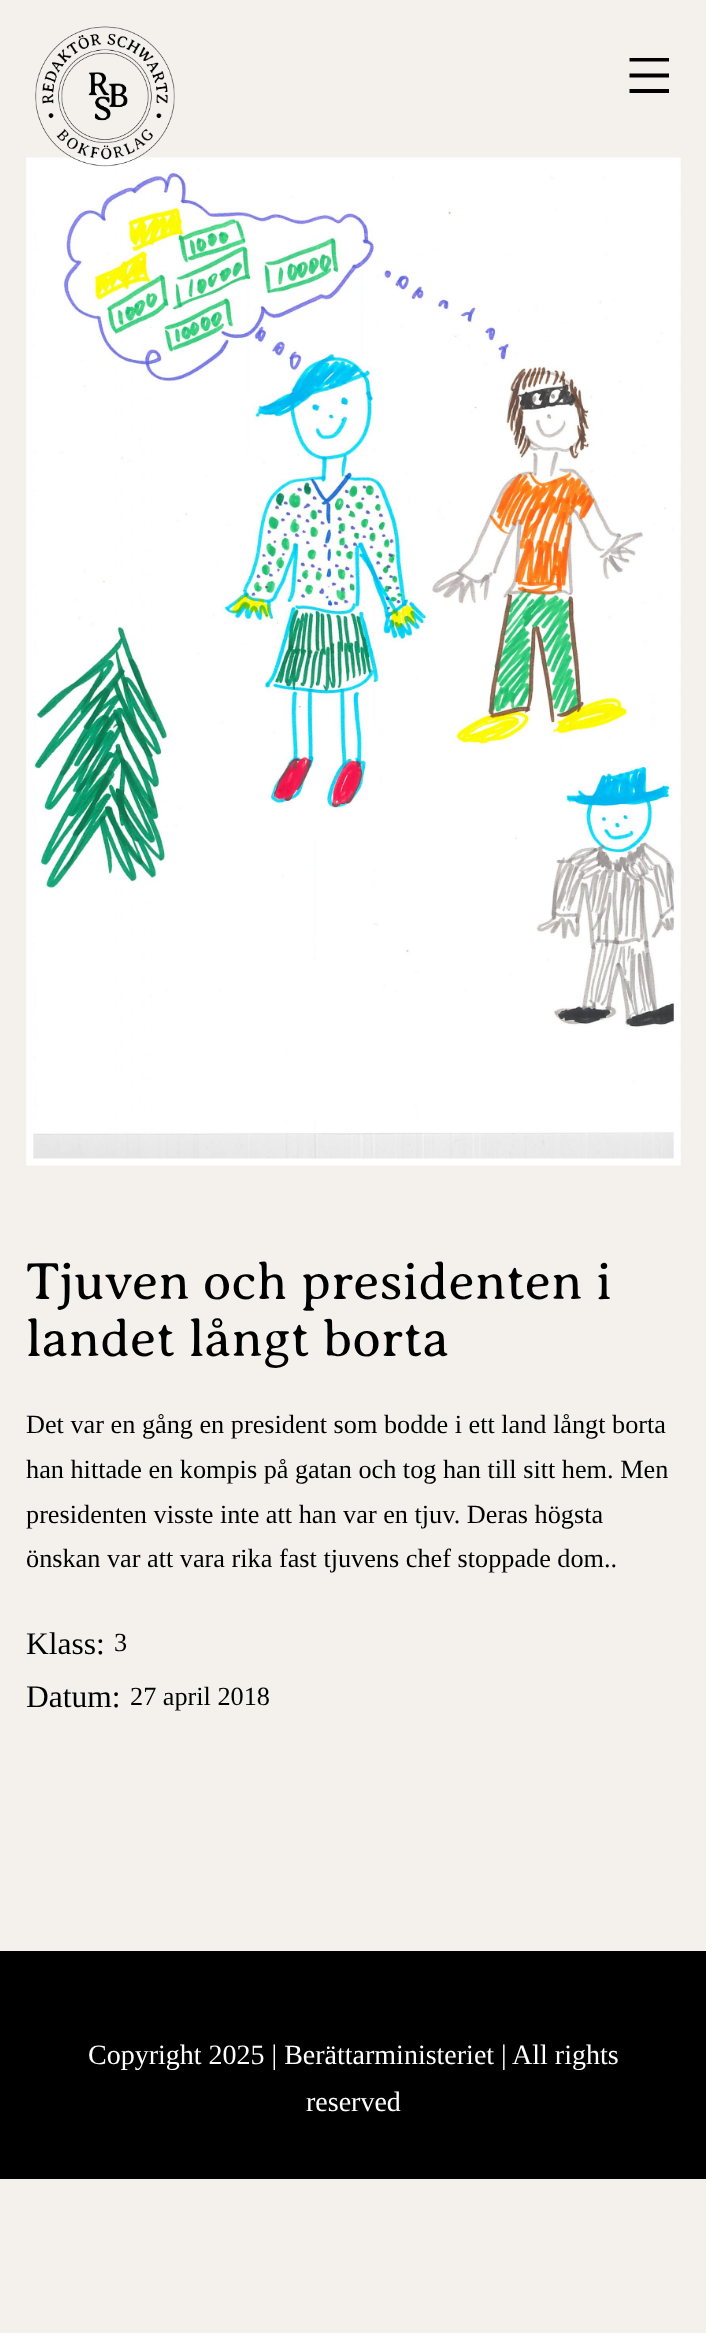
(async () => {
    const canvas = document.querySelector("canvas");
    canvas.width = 706;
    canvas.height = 2333;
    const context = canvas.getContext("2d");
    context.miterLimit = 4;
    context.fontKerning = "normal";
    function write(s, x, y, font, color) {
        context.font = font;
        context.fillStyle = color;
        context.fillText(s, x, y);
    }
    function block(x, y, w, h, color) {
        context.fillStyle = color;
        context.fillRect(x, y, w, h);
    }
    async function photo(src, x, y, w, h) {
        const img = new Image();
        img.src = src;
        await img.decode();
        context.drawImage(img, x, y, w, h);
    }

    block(0, 0, 706, 2333, "rgb(244, 241, 237)");
    await photo("media/2.png", 26, 157, 655, 1009);
    await photo("media/1.png", 35, 26, 140, 141);
    context.fillStyle = "rgb(0, 0, 0)";
    context.beginPath();
    context.moveTo(629.5, 58);
    context.lineTo(669, 58);
    context.lineTo(669, 61.5);
    context.lineTo(629.5, 61.5);
    context.closePath();
    context.moveTo(629.5, 73.5);
    context.lineTo(669, 73.5);
    context.lineTo(669, 77.5);
    context.lineTo(629.5, 77.5);
    context.closePath();
    context.moveTo(669, 89);
    context.lineTo(629.5, 89);
    context.lineTo(629.5, 93);
    context.lineTo(669, 93);
    context.closePath();
    context.fill("evenodd");
    write("Tjuven och presidenten i", 26, 1299, "300 52.5px Averia Serif Libre", "rgb(0, 0, 0)");
    write("landet långt borta", 26, 1356, "300 52.5px Averia Serif Libre", "rgb(0, 0, 0)");
    write("Det var en gång en president som bodde i ett land långt borta", 26, 1433, "26.25px Liberation Serif", "rgb(0, 0, 0)");
    write("han hittade en kompis på gatan och tog han till sitt hem. Men", 26, 1478, "26.25px Liberation Serif", "rgb(0, 0, 0)");
    write("presidenten visste inte att han var en tjuv. Deras högsta", 26, 1523, "26.25px Liberation Serif", "rgb(0, 0, 0)");
    write("önskan var att vara rika fast tjuvens chef stoppade dom..", 26, 1567, "26.25px Liberation Serif", "rgb(0, 0, 0)");
    write("Klass:", 26, 1654, "31.5px Liberation Serif", "rgb(0, 0, 0)");
    write("3", 114, 1651, "26.25px Liberation Serif", "rgb(0, 0, 0)");
    write("Datum:", 26, 1707, "31.5px Liberation Serif", "rgb(0, 0, 0)");
    write("27 april 2018", 130, 1705, "26.25px Liberation Serif", "rgb(0, 0, 0)");
    block(0, 1951, 706, 228, "rgb(0, 0, 0)");
    write("Copyright 2025 | Berättarministeriet", 88, 2064, "28px Liberation Serif", "rgb(255, 255, 255)");
    write("| All rights", 501, 2064, "28px Liberation Serif", "rgb(255, 255, 255)");
    write("reserved", 306, 2111, "28px Liberation Serif", "rgb(255, 255, 255)");
})();
